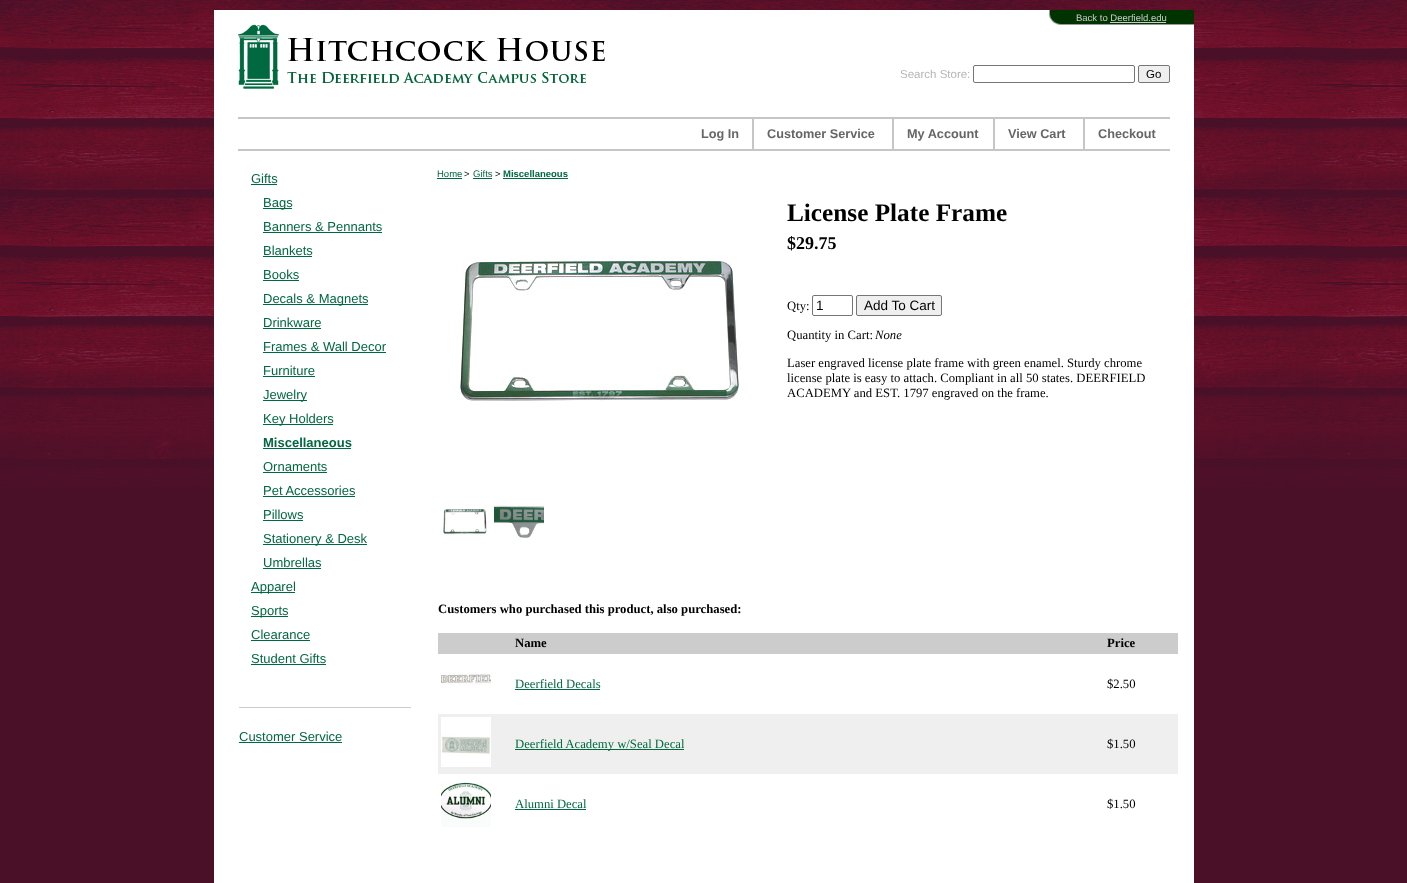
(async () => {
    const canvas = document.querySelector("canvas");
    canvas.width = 1407;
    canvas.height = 883;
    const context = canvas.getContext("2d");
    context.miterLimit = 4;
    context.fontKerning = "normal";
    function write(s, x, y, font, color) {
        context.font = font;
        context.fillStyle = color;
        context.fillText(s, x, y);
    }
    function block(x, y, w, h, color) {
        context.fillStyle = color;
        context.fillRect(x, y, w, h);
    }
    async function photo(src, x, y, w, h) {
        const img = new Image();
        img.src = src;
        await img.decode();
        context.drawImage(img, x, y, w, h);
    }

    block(0, 0, 1407, 883, "rgb(73, 16, 40)");
    await photo("media/1.png", 0, 0, 1407, 489);
    block(214, 10, 980, 873, "rgb(255, 255, 255)");
    await photo("media/2.png", 1049, 10, 145, 15);
    write("Back to Deerfield.edu", 1076, 21, "9.5px Liberation Sans", "rgb(204, 204, 204)");
    block(1110, 22, 56, 1, "rgb(204, 204, 204)");
    await photo("media/3.png", 238, 24, 367, 65);
    write("Search Store:", 900, 78, "11.5px Liberation Sans", "rgb(182, 182, 182)");
    context.beginPath();
    context.roundRect(973.5, 65.5, 161, 17, 1.5);
    context.strokeStyle = "rgb(118, 118, 118)";
    context.stroke();
    context.fillStyle = "rgb(239, 239, 239)";
    context.beginPath();
    context.roundRect(1138.5, 65.5, 31, 17, 1.5);
    context.fill();
    context.stroke();
    write("Go", 1146, 78, "11.5px Liberation Sans", "rgb(0, 0, 0)");
    await photo("media/4.png", 238, 117, 932, 34);
    write("Log In", 701, 138, "bold 12.7px Liberation Sans", "rgb(102, 102, 102)");
    write("Customer Service", 767, 138, "bold 12.7px Liberation Sans", "rgb(102, 102, 102)");
    write("My Account", 907, 138, "bold 12.7px Liberation Sans", "rgb(102, 102, 102)");
    write("View Cart", 1008, 138, "bold 12.7px Liberation Sans", "rgb(102, 102, 102)");
    write("Checkout", 1098, 138, "bold 12.7px Liberation Sans", "rgb(102, 102, 102)");
    write("Gifts", 251, 183, "13px Liberation Sans", "rgb(0, 105, 64)");
    block(251, 184, 26, 1, "rgb(0, 105, 64)");
    block(263, 208, 29, 1, "rgb(0, 105, 64)");
    write("Bags", 263, 207, "13px Liberation Sans", "rgb(0, 105, 64)");
    write("Banners & Pennants", 263, 231, "13px Liberation Sans", "rgb(0, 105, 64)");
    block(263, 232, 119, 1, "rgb(0, 105, 64)");
    write("Blankets", 263, 255, "13px Liberation Sans", "rgb(0, 105, 64)");
    block(263, 256, 49, 1, "rgb(0, 105, 64)");
    write("Books", 263, 279, "13px Liberation Sans", "rgb(0, 105, 64)");
    block(263, 280, 36, 1, "rgb(0, 105, 64)");
    block(263, 304, 105, 1, "rgb(0, 105, 64)");
    write("Decals & Magnets", 263, 303, "13px Liberation Sans", "rgb(0, 105, 64)");
    write("Drinkware", 263, 327, "13px Liberation Sans", "rgb(0, 105, 64)");
    block(263, 328, 58, 1, "rgb(0, 105, 64)");
    write("Frames & Wall Decor", 263, 351, "13px Liberation Sans", "rgb(0, 105, 64)");
    block(263, 352, 123, 1, "rgb(0, 105, 64)");
    write("Furniture", 263, 375, "13px Liberation Sans", "rgb(0, 105, 64)");
    block(263, 376, 52, 1, "rgb(0, 105, 64)");
    block(263, 400, 44, 1, "rgb(0, 105, 64)");
    write("Jewelry", 263, 399, "13px Liberation Sans", "rgb(0, 105, 64)");
    block(263, 424, 70, 1, "rgb(0, 105, 64)");
    write("Key Holders", 263, 423, "13px Liberation Sans", "rgb(0, 105, 64)");
    write("Miscellaneous", 263, 447, "bold 13px Liberation Sans", "rgb(0, 105, 64)");
    block(263, 448, 88, 1, "rgb(0, 105, 64)");
    write("Ornaments", 263, 471, "13px Liberation Sans", "rgb(0, 105, 64)");
    block(263, 472, 64, 1, "rgb(0, 105, 64)");
    write("Pet Accessories", 263, 495, "13px Liberation Sans", "rgb(0, 105, 64)");
    block(263, 496, 92, 1, "rgb(0, 105, 64)");
    write("Pillows", 263, 519, "13px Liberation Sans", "rgb(0, 105, 64)");
    block(263, 520, 40, 1, "rgb(0, 105, 64)");
    block(263, 544, 104, 1, "rgb(0, 105, 64)");
    write("Stationery & Desk", 263, 543, "13px Liberation Sans", "rgb(0, 105, 64)");
    write("Umbrellas", 263, 567, "13px Liberation Sans", "rgb(0, 105, 64)");
    block(263, 568, 58, 1, "rgb(0, 105, 64)");
    block(251, 592, 44, 1, "rgb(0, 105, 64)");
    write("Apparel", 251, 591, "13px Liberation Sans", "rgb(0, 105, 64)");
    block(251, 616, 37, 1, "rgb(0, 105, 64)");
    write("Sports", 251, 615, "13px Liberation Sans", "rgb(0, 105, 64)");
    write("Clearance", 251, 639, "13px Liberation Sans", "rgb(0, 105, 64)");
    block(251, 640, 59, 1, "rgb(0, 105, 64)");
    write("Student Gifts", 251, 663, "13px Liberation Sans", "rgb(0, 105, 64)");
    block(251, 664, 75, 1, "rgb(0, 105, 64)");
    block(239, 707, 172, 1, "rgb(204, 204, 204)");
    write("Customer Service", 239, 741, "13px Liberation Sans", "rgb(0, 105, 64)");
    block(239, 742, 103, 1, "rgb(0, 105, 64)");
    write("Home", 437, 177, "9.5px Liberation Sans", "rgb(0, 105, 64)");
    block(437, 178, 25, 1, "rgb(0, 105, 64)");
    write(">", 464, 177, "9.5px Liberation Sans", "rgb(0, 0, 0)");
    write("Gifts", 473, 177, "9.5px Liberation Sans", "rgb(0, 105, 64)");
    block(473, 178, 19, 1, "rgb(0, 105, 64)");
    write(">", 495, 177, "9.5px Liberation Sans", "rgb(0, 0, 0)");
    write("Miscellaneous", 503, 177, "bold 9.5px Liberation Sans", "rgb(0, 105, 64)");
    block(503, 178, 65, 1, "rgb(0, 105, 64)");
    await photo("media/5.png", 457, 257, 284, 144);
    await photo("media/6.png", 443, 509, 44, 26);
    await photo("media/7.png", 494, 505, 50, 33);
    write("License Plate Frame", 787, 221, "bold 25.25px Liberation Serif", "rgb(0, 0, 0)");
    write("$29.75", 787, 249, "bold 18px Liberation Serif", "rgb(0, 0, 0)");
    write("Qty:", 787, 310, "12.7px Liberation Serif", "rgb(0, 0, 0)");
    context.beginPath();
    context.roundRect(812.5, 295.5, 40, 20, 1.5);
    context.stroke();
    write("1", 816, 310, "13.5px Liberation Sans", "rgb(0, 0, 0)");
    context.fillStyle = "rgb(239, 239, 239)";
    context.beginPath();
    context.roundRect(856.5, 295.5, 85, 20, 1.5);
    context.fill();
    context.stroke();
    write("Add To Cart", 864, 310, "13.5px Liberation Sans", "rgb(0, 0, 0)");
    write("Quantity in Cart:", 787, 339, "12.7px Liberation Serif", "rgb(0, 0, 0)");
    write("None", 875, 339, "italic 12.7px Liberation Serif", "rgb(0, 0, 0)");
    write("Laser engraved license plate frame with green enamel. Sturdy chrome", 787, 367, "12.7px Liberation Serif", "rgb(0, 0, 0)");
    write("license plate is easy to attach. Compliant in all 50 states. DEERFIELD", 787, 382, "12.7px Liberation Serif", "rgb(0, 0, 0)");
    write("ACADEMY and EST. 1797 engraved on the frame.", 787, 397, "12.7px Liberation Serif", "rgb(0, 0, 0)");
    write("Customers who purchased this product, also purchased:", 438, 613, "bold 12.7px Liberation Serif", "rgb(0, 0, 0)");
    block(438, 633, 740, 21, "rgb(204, 204, 204)");
    write("Name", 515, 647, "bold 12.7px Liberation Serif", "rgb(0, 0, 0)");
    write("Price", 1107, 647, "bold 12.7px Liberation Serif", "rgb(0, 0, 0)");
    await photo("media/8.png", 441, 673, 50, 12);
    write("Deerfield Decals", 515, 688, "12.7px Liberation Serif", "rgb(0, 105, 64)");
    block(515, 689, 85, 1, "rgb(0, 105, 64)");
    write("$2.50", 1107, 688, "12.7px Liberation Serif", "rgb(0, 0, 0)");
    block(438, 714, 740, 60, "rgb(239, 239, 239)");
    await photo("media/9.png", 441, 717, 50, 50);
    block(515, 749, 169, 1, "rgb(0, 105, 64)");
    write("Deerfield Academy w/Seal Decal", 515, 748, "12.7px Liberation Serif", "rgb(0, 105, 64)");
    write("$1.50", 1107, 748, "12.7px Liberation Serif", "rgb(0, 0, 0)");
    await photo("media/10.png", 441, 782, 50, 45);
    write("Alumni Decal", 515, 808, "12.7px Liberation Serif", "rgb(0, 105, 64)");
    block(515, 809, 71, 1, "rgb(0, 105, 64)");
    write("$1.50", 1107, 808, "12.7px Liberation Serif", "rgb(0, 0, 0)");
})();
